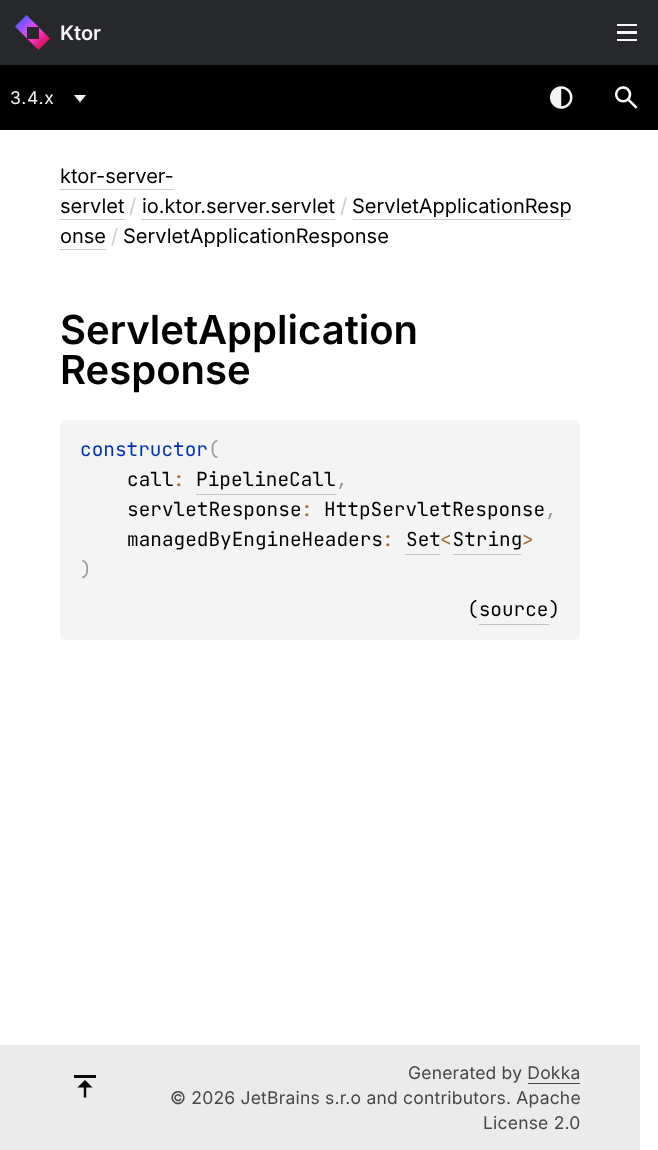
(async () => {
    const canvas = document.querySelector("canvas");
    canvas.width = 658;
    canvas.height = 1150;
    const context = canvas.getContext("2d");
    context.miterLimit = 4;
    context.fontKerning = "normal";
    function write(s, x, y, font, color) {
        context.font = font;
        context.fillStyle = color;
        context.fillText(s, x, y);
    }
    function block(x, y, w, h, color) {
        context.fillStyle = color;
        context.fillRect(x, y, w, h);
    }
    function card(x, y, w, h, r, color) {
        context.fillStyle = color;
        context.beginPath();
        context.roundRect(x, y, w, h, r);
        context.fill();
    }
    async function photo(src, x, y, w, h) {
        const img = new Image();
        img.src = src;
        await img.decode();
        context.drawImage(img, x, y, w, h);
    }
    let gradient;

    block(0, 0, 658, 1150, "rgb(255, 255, 255)");
    block(0, 0, 658, 65, "rgb(39, 40, 44)");
    gradient = context.createLinearGradient(16, 27, 38, 49);
    gradient.addColorStop(0, "rgb(107, 87, 255)");
    gradient.addColorStop(0.5, "rgb(255, 69, 237)");
    gradient.addColorStop(1, "rgb(221, 18, 101)");
    context.fillStyle = gradient;
    context.beginPath();
    context.moveTo(15, 26.5);
    context.lineTo(26.5, 15);
    context.lineTo(50, 38.5);
    context.lineTo(38.5, 50);
    context.closePath();
    context.fill();
    block(27, 27, 12, 12, "rgb(39, 40, 44)");
    write("Ktor", 60, 40, "600 20px Inter", "rgb(245, 245, 245)");
    block(617, 24, 20, 2, "rgb(246, 246, 247)");
    block(617, 31, 20, 3, "rgb(246, 246, 247)");
    block(617, 39, 20, 2, "rgb(246, 246, 247)");
    block(0, 65, 658, 65, "rgb(0, 0, 0)");
    context.letterSpacing = "0.75px";
    write("3.4.x", 10, 104, "17.5px Inter", "rgb(245, 245, 245)");
    context.beginPath();
    context.moveTo(80, 102.5);
    context.lineTo(74, 95);
    context.lineTo(86, 95);
    context.closePath();
    context.fill();
    await photo("media/1.png", 550, 86, 23, 23);
    await photo("media/2.png", 615, 86, 23, 23);
    context.letterSpacing = "0px";
    write("ktor-server-", 60, 183, "20px Inter", "rgb(0, 0, 0)");
    block(60, 189, 114, 1, "rgb(204, 204, 204)");
    write("servlet", 60, 213, "20px Inter", "rgb(0, 0, 0)");
    block(60, 219, 65, 1, "rgb(204, 204, 204)");
    write("/", 129, 213, "20px Inter", "rgb(204, 204, 204)");
    write("io.ktor.server.servlet", 142, 213, "20px Inter", "rgb(0, 0, 0)");
    block(141, 219, 194, 1, "rgb(204, 204, 204)");
    write("/", 340, 213, "20px Inter", "rgb(204, 204, 204)");
    write("ServletApplicationResp", 352, 213, "20px Inter", "rgb(0, 0, 0)");
    block(353, 219, 218, 1, "rgb(204, 204, 204)");
    write("onse", 60, 243, "20px Inter", "rgb(0, 0, 0)");
    block(60, 249, 46, 1, "rgb(204, 204, 204)");
    write("/", 111, 243, "20px Inter", "rgb(204, 204, 204)");
    write("ServletApplicationResponse", 123, 243, "20px Inter", "rgb(0, 0, 0)");
    write("ServletApplication", 60, 344, "600 40px Inter", "rgb(0, 0, 0)");
    write("Response", 60, 384, "600 40px Inter", "rgb(0, 0, 0)");
    card(60, 420, 520, 220, 5, "rgb(244, 244, 244)");
    write("constructor", 80, 456, "19.4px JetBrains Mono", "rgb(0, 51, 179)");
    write("(", 208, 456, "19.4px JetBrains Mono", "rgb(153, 153, 153)");
    write("call", 127, 486, "19.4px JetBrains Mono", "rgb(0, 0, 0)");
    write(":", 173, 486, "19.4px JetBrains Mono", "rgb(154, 110, 58)");
    write("PipelineCall", 196, 486, "19.4px JetBrains Mono", "rgb(0, 0, 0)");
    block(196, 494, 140, 1, "rgb(195, 195, 195)");
    write(",", 336, 486, "19.4px JetBrains Mono", "rgb(153, 153, 153)");
    write("servletResponse", 127, 516, "19.4px JetBrains Mono", "rgb(0, 0, 0)");
    write(":", 301, 516, "19.4px JetBrains Mono", "rgb(154, 110, 58)");
    write("HttpServletResponse", 324, 516, "19.4px JetBrains Mono", "rgb(0, 0, 0)");
    write(",", 545, 516, "19.4px JetBrains Mono", "rgb(153, 153, 153)");
    write("managedByEngineHeaders", 127, 546, "19.4px JetBrains Mono", "rgb(0, 0, 0)");
    write("Set String", 406, 546, "19.4px JetBrains Mono", "rgb(0, 0, 0)");
    block(405, 554, 35, 1, "rgb(195, 195, 195)");
    write(":", 382, 546, "19.4px JetBrains Mono", "rgb(154, 110, 58)");
    write("<", 440, 546, "19.4px JetBrains Mono", "rgb(154, 110, 58)");
    write(">", 522, 546, "19.4px JetBrains Mono", "rgb(154, 110, 58)");
    block(453, 554, 68, 1, "rgb(195, 195, 195)");
    write(")", 80, 576, "19.4px JetBrains Mono", "rgb(153, 153, 153)");
    write("(source)", 467, 616, "19.4px JetBrains Mono", "rgb(0, 0, 0)");
    block(479, 624, 70, 1, "rgb(195, 195, 195)");
    block(0, 1045, 640, 105, "rgb(235, 235, 235)");
    await photo("media/3.png", 74, 1075, 22, 23);
    context.letterSpacing = "0.2px";
    write("Generated by Dokka", 408, 1079, "17.5px Inter", "rgb(71, 71, 71)");
    block(528, 1083, 52, 1, "rgb(71, 71, 71)");
    write("© 2026 JetBrains s.r.o and contributors. Apache", 170, 1104, "17.5px Inter", "rgb(71, 71, 71)");
    write("License 2.0", 483, 1129, "17.5px Inter", "rgb(71, 71, 71)");
})();
